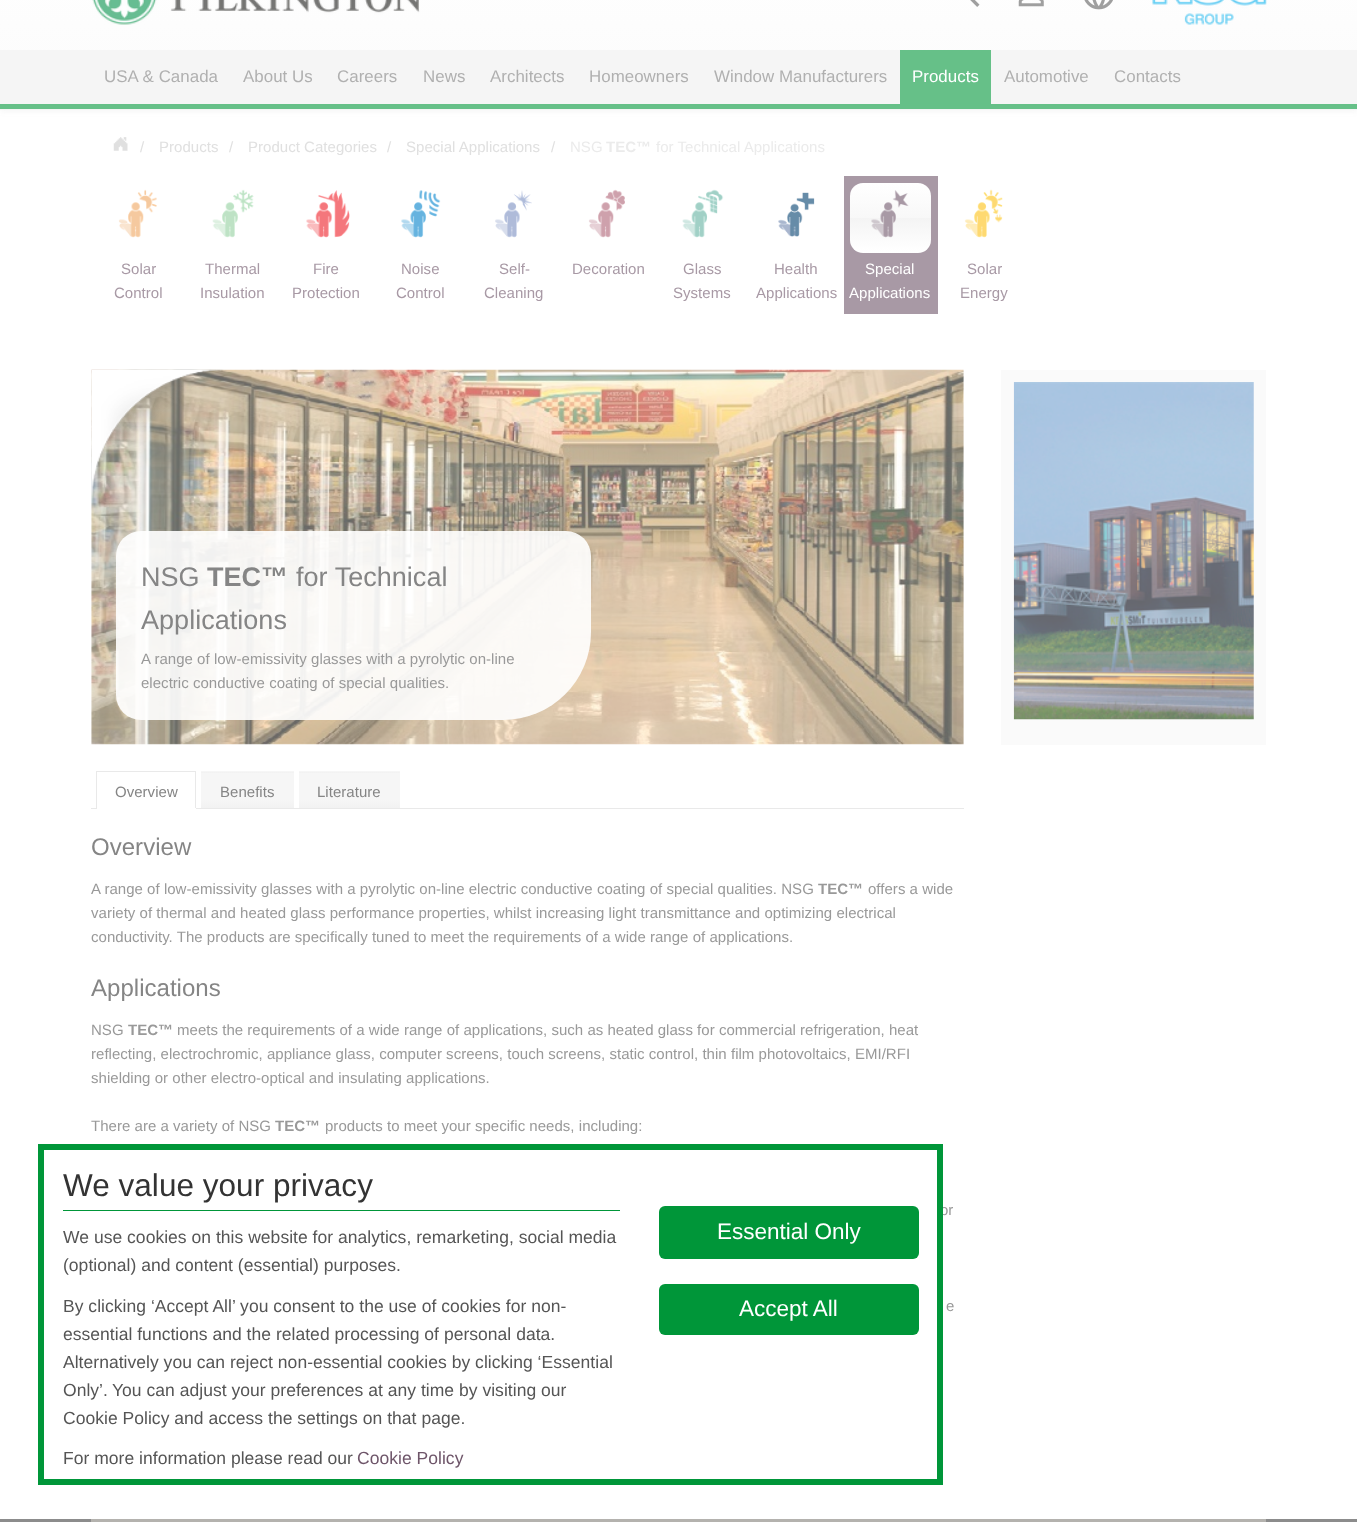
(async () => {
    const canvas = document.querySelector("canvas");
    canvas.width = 1357;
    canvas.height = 1522;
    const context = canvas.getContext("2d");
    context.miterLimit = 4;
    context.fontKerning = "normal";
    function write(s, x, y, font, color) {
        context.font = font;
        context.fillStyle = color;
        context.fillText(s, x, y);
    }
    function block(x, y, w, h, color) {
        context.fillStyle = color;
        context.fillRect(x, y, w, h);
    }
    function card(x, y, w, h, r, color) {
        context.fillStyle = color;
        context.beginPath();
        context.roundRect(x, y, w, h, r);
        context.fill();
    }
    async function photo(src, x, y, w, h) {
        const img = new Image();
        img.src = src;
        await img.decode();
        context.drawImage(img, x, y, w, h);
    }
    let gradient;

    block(0, 0, 1357, 1522, "rgb(255, 255, 255)");
    context.fillStyle = "rgba(102, 102, 102, 0.07)";
    context.filter = "blur(3px)";
    context.beginPath();
    context.rect(0, -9, 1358, 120);
    context.fill();
    context.filter = "none";
    gradient = context.createLinearGradient(679, -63, 679, 110);
    gradient.addColorStop(0, "rgb(255, 255, 255)");
    gradient.addColorStop(1, "rgb(251, 251, 251)");
    context.fillStyle = gradient;
    context.fillRect(0, 0, 1357, 50);
    await photo("media/1.png", 92, 0, 328, 25);
    await photo("media/2.png", 970, 0, 10, 7);
    await photo("media/3.png", 1018, 0, 26, 7);
    await photo("media/4.png", 1084, 0, 29, 10);
    await photo("media/5.png", 1152, 0, 115, 25);
    block(0, 50, 1357, 60, "rgb(245, 245, 245)");
    context.letterSpacing = "0.03px";
    write("USA & Canada", 104, 82, "16.9px Liberation Sans", "rgb(176, 176, 176)");
    write("About Us", 243, 82, "16.9px Liberation Sans", "rgb(176, 176, 176)");
    write("Careers", 337, 82, "16.9px Liberation Sans", "rgb(176, 176, 176)");
    write("News", 423, 82, "16.9px Liberation Sans", "rgb(176, 176, 176)");
    write("Architects", 490, 82, "16.9px Liberation Sans", "rgb(176, 176, 176)");
    write("Homeowners", 589, 82, "16.9px Liberation Sans", "rgb(176, 176, 176)");
    write("Window Manufacturers", 714, 82, "16.9px Liberation Sans", "rgb(176, 176, 176)");
    block(900, 50, 91, 54, "rgb(102, 192, 136)");
    write("Products", 912, 82, "16.9px Liberation Sans", "rgb(255, 255, 255)");
    write("Automotive", 1004, 82, "16.9px Liberation Sans", "rgb(176, 176, 176)");
    write("Contacts", 1114, 82, "16.9px Liberation Sans", "rgb(176, 176, 176)");
    block(0, 104, 1357, 5, "rgb(102, 192, 136)");
    await photo("media/6.png", 113, 137, 15, 14);
    write("/", 140, 152, "15px Liberation Sans", "rgb(224, 224, 224)");
    write("Products", 159, 152, "15px Liberation Sans", "rgb(224, 224, 224)");
    write("/", 229, 152, "15px Liberation Sans", "rgb(224, 224, 224)");
    write("Product Categories", 248, 152, "15px Liberation Sans", "rgb(224, 224, 224)");
    write("/", 387, 152, "15px Liberation Sans", "rgb(224, 224, 224)");
    write("Special Applications", 406, 152, "15px Liberation Sans", "rgb(224, 224, 224)");
    write("/", 551, 152, "15px Liberation Sans", "rgb(224, 224, 224)");
    write("NSG", 570, 152, "15px Liberation Sans", "rgb(235, 235, 235)");
    write("TEC™", 606, 152, "bold 15px Liberation Sans", "rgb(235, 235, 235)");
    write("for Technical Applications", 656, 152, "15px Liberation Sans", "rgb(235, 235, 235)");
    await photo("media/7.png", 118, 189, 39, 49);
    write("Solar", 121, 274, "15px Liberation Sans", "rgb(168, 153, 165)");
    write("Control", 114, 298, "15px Liberation Sans", "rgb(168, 153, 165)");
    await photo("media/8.png", 212, 189, 42, 49);
    write("Thermal", 205, 274, "15px Liberation Sans", "rgb(168, 153, 165)");
    write("Insulation", 200, 298, "15px Liberation Sans", "rgb(168, 153, 165)");
    await photo("media/9.png", 306, 190, 44, 48);
    write("Fire", 313, 274, "15px Liberation Sans", "rgb(168, 153, 165)");
    write("Protection", 292, 298, "15px Liberation Sans", "rgb(168, 153, 165)");
    await photo("media/10.png", 401, 190, 40, 48);
    write("Noise", 401, 274, "15px Liberation Sans", "rgb(168, 153, 165)");
    write("Control", 396, 298, "15px Liberation Sans", "rgb(168, 153, 165)");
    await photo("media/11.png", 495, 190, 37, 48);
    write("Self-", 499, 274, "15px Liberation Sans", "rgb(168, 153, 165)");
    write("Cleaning", 484, 298, "15px Liberation Sans", "rgb(168, 153, 165)");
    await photo("media/12.png", 588, 189, 37, 49);
    write("Decoration", 572, 274, "15px Liberation Sans", "rgb(168, 153, 165)");
    await photo("media/13.png", 682, 189, 42, 49);
    write("Glass", 683, 274, "15px Liberation Sans", "rgb(168, 153, 165)");
    write("Systems", 673, 298, "15px Liberation Sans", "rgb(168, 153, 165)");
    await photo("media/14.png", 778, 192, 37, 45);
    write("Health", 774, 274, "15px Liberation Sans", "rgb(168, 153, 165)");
    write("Applications", 756, 298, "15px Liberation Sans", "rgb(168, 153, 165)");
    block(844, 176, 94, 138, "rgb(168, 153, 165)");
    context.save();
    context.beginPath();
    context.roundRect(850, 183, 81, 70, 13);
    context.clip();
    gradient = context.createLinearGradient(891, 116, 891, 184);
    gradient.addColorStop(0, "rgb(255, 255, 255)");
    gradient.addColorStop(0.5, "rgb(248, 248, 248)");
    gradient.addColorStop(0.51, "rgb(244, 244, 244)");
    gradient.addColorStop(1, "rgb(255, 255, 255)");
    context.fillStyle = gradient;
    context.fillRect(850, 183, 81, 1);
    gradient = context.createLinearGradient(891, 184, 891, 251);
    gradient.addColorStop(0, "rgb(255, 255, 255)");
    gradient.addColorStop(0.5, "rgb(248, 248, 248)");
    gradient.addColorStop(0.51, "rgb(244, 244, 244)");
    gradient.addColorStop(1, "rgb(255, 255, 255)");
    context.fillStyle = gradient;
    context.fillRect(850, 184, 81, 67);
    gradient = context.createLinearGradient(891, 251, 891, 319);
    gradient.addColorStop(0, "rgb(255, 255, 255)");
    gradient.addColorStop(0.5, "rgb(248, 248, 248)");
    gradient.addColorStop(0.51, "rgb(244, 244, 244)");
    gradient.addColorStop(1, "rgb(255, 255, 255)");
    context.fillStyle = gradient;
    context.fillRect(850, 251, 81, 2);
    context.restore();
    await photo("media/15.png", 871, 190, 38, 48);
    write("Special", 865, 274, "15px Liberation Sans", "rgb(255, 255, 255)");
    write("Applications", 849, 298, "15px Liberation Sans", "rgb(255, 255, 255)");
    await photo("media/16.png", 964, 189, 39, 49);
    write("Solar", 967, 274, "15px Liberation Sans", "rgb(168, 153, 165)");
    write("Energy", 960, 298, "15px Liberation Sans", "rgb(168, 153, 165)");
    await photo("media/17.png", 91, 369, 873, 376);
    await photo("media/18.png", 91, 369, 133, 131);
    context.fillStyle = "rgba(255, 255, 255, 0.9)";
    context.beginPath();
    context.roundRect(116, 531, 475, 189, [25, 25, 88, 25]);
    context.fill();
    write("NSG", 141, 586, "27px Liberation Sans", "rgb(133, 133, 133)");
    write("TEC™", 207, 586, "bold 27px Liberation Sans", "rgb(133, 133, 133)");
    write("for Technical", 296, 586, "27px Liberation Sans", "rgb(133, 133, 133)");
    write("Applications", 141, 629, "27px Liberation Sans", "rgb(133, 133, 133)");
    write("A range of low-emissivity glasses with a pyrolytic on-line", 141, 664, "15px Liberation Sans", "rgb(153, 153, 153)");
    write("electric conductive coating of special qualities.", 141, 688, "15px Liberation Sans", "rgb(153, 153, 153)");
    block(91, 808, 873, 1, "rgb(233, 233, 233)");
    block(96, 771, 100, 1, "rgb(233, 233, 233)");
    block(195, 771, 1, 38, "rgb(233, 233, 233)");
    block(96, 808, 100, 1, "rgb(255, 255, 255)");
    block(96, 771, 1, 38, "rgb(233, 233, 233)");
    write("Overview", 115, 797, "15px Liberation Sans", "rgb(133, 133, 133)");
    gradient = context.createLinearGradient(248, 738, 248, 773);
    gradient.addColorStop(0, "rgb(246, 246, 246)");
    gradient.addColorStop(0.75, "rgb(246, 246, 246)");
    gradient.addColorStop(1, "rgb(242, 242, 242)");
    context.fillStyle = gradient;
    context.fillRect(201, 772, 93, 1);
    gradient = context.createLinearGradient(248, 773, 248, 808);
    gradient.addColorStop(0, "rgb(246, 246, 246)");
    gradient.addColorStop(0.75, "rgb(246, 246, 246)");
    gradient.addColorStop(1, "rgb(242, 242, 242)");
    context.fillStyle = gradient;
    context.fillRect(201, 773, 93, 35);
    block(201, 771, 93, 1, "rgb(246, 246, 246)");
    write("Benefits", 220, 797, "15px Liberation Sans", "rgb(133, 133, 133)");
    gradient = context.createLinearGradient(349, 738, 349, 773);
    gradient.addColorStop(0, "rgb(246, 246, 246)");
    gradient.addColorStop(0.75, "rgb(246, 246, 246)");
    gradient.addColorStop(1, "rgb(242, 242, 242)");
    context.fillStyle = gradient;
    context.fillRect(299, 772, 101, 1);
    gradient = context.createLinearGradient(349, 773, 349, 808);
    gradient.addColorStop(0, "rgb(246, 246, 246)");
    gradient.addColorStop(0.75, "rgb(246, 246, 246)");
    gradient.addColorStop(1, "rgb(242, 242, 242)");
    context.fillStyle = gradient;
    context.fillRect(299, 773, 101, 35);
    block(299, 771, 101, 1, "rgb(246, 246, 246)");
    write("Literature", 317, 797, "15px Liberation Sans", "rgb(133, 133, 133)");
    write("Overview", 91, 855, "24px Liberation Sans", "rgb(133, 133, 133)");
    write("A range of low-emissivity glasses with a pyrolytic on-line electric conductive coating of special qualities. NSG", 91, 894, "15px Liberation Sans", "rgb(153, 153, 153)");
    write("TEC™", 818, 894, "bold 15px Liberation Sans", "rgb(153, 153, 153)");
    write("offers a wide", 868, 894, "15px Liberation Sans", "rgb(153, 153, 153)");
    write("variety of thermal and heated glass performance properties, whilst increasing light transmittance and optimizing electrical", 91, 918, "15px Liberation Sans", "rgb(153, 153, 153)");
    write("conductivity. The products are specifically tuned to meet the requirements of a wide range of applications.", 91, 942, "15px Liberation Sans", "rgb(153, 153, 153)");
    write("Applications", 91, 996, "24px Liberation Sans", "rgb(133, 133, 133)");
    write("NSG", 91, 1035, "15px Liberation Sans", "rgb(153, 153, 153)");
    write("TEC™", 128, 1035, "bold 15px Liberation Sans", "rgb(153, 153, 153)");
    write("meets the requirements of a wide range of applications, such as heated glass for commercial refrigeration, heat", 177, 1035, "15px Liberation Sans", "rgb(153, 153, 153)");
    write("reflecting, electrochromic, appliance glass, computer screens, touch screens, static control, thin film photovoltaics, EMI/RFI", 91, 1059, "15px Liberation Sans", "rgb(153, 153, 153)");
    write("shielding or other electro-optical and insulating applications.", 91, 1083, "15px Liberation Sans", "rgb(153, 153, 153)");
    write("There are a variety of NSG", 91, 1131, "15px Liberation Sans", "rgb(153, 153, 153)");
    write("TEC™", 275, 1131, "bold 15px Liberation Sans", "rgb(153, 153, 153)");
    write("products to meet your specific needs, including:", 325, 1131, "15px Liberation Sans", "rgb(153, 153, 153)");
    write("or", 940, 1215, "15px Liberation Sans", "rgb(153, 153, 153)");
    write("e", 946, 1311, "15px Liberation Sans", "rgb(153, 153, 153)");
    block(1001, 370, 265, 375, "rgb(250, 250, 250)");
    await photo("media/19.png", 1013, 382, 241, 338);
    context.strokeStyle = "rgb(0, 150, 57)";
    context.lineWidth = 6;
    context.strokeRect(41, 1147, 899, 335);
    block(63, 1210, 557, 1, "rgb(0, 150, 57)");
    write("We value your privacy", 63, 1196, "31.5px Liberation Sans", "rgb(51, 51, 51)");
    write("We use cookies on this website for analytics, remarketing, social media", 63, 1243, "17.5px Liberation Sans", "rgb(85, 85, 85)");
    write("(optional) and content (essential) purposes.", 63, 1271, "17.5px Liberation Sans", "rgb(85, 85, 85)");
    write("By clicking ‘Accept All’ you consent to the use of cookies for non-", 63, 1312, "17.5px Liberation Sans", "rgb(85, 85, 85)");
    write("essential functions and the related processing of personal data.", 63, 1340, "17.5px Liberation Sans", "rgb(85, 85, 85)");
    write("Alternatively you can reject non-essential cookies by clicking ‘Essential", 63, 1368, "17.5px Liberation Sans", "rgb(85, 85, 85)");
    write("Only’.", 63, 1396, "17.5px Liberation Sans", "rgb(85, 85, 85)");
    write("You can adjust your preferences at any time by visiting our", 112, 1396, "17.5px Liberation Sans", "rgb(85, 85, 85)");
    write("Cookie Policy and access the settings on that page.", 63, 1424, "17.5px Liberation Sans", "rgb(85, 85, 85)");
    write("For more information please read our", 63, 1464, "17.5px Liberation Sans", "rgb(85, 85, 85)");
    write("Cookie Policy", 357, 1464, "17.5px Liberation Sans", "rgb(110, 85, 105)");
    card(659, 1206, 260, 53, 6, "rgb(0, 150, 57)");
    context.letterSpacing = "0px";
    write("Essential Only", 717, 1239, "22.5px Liberation Sans", "rgb(255, 255, 255)");
    card(659, 1284, 260, 51, 6, "rgb(0, 150, 57)");
    write("Accept All", 739, 1316, "22.5px Liberation Sans", "rgb(255, 255, 255)");
    block(0, 1519, 1357, 3, "rgb(140, 140, 140)");
    block(91, 1519, 1175, 3, "rgb(180, 178, 174)");
})();
